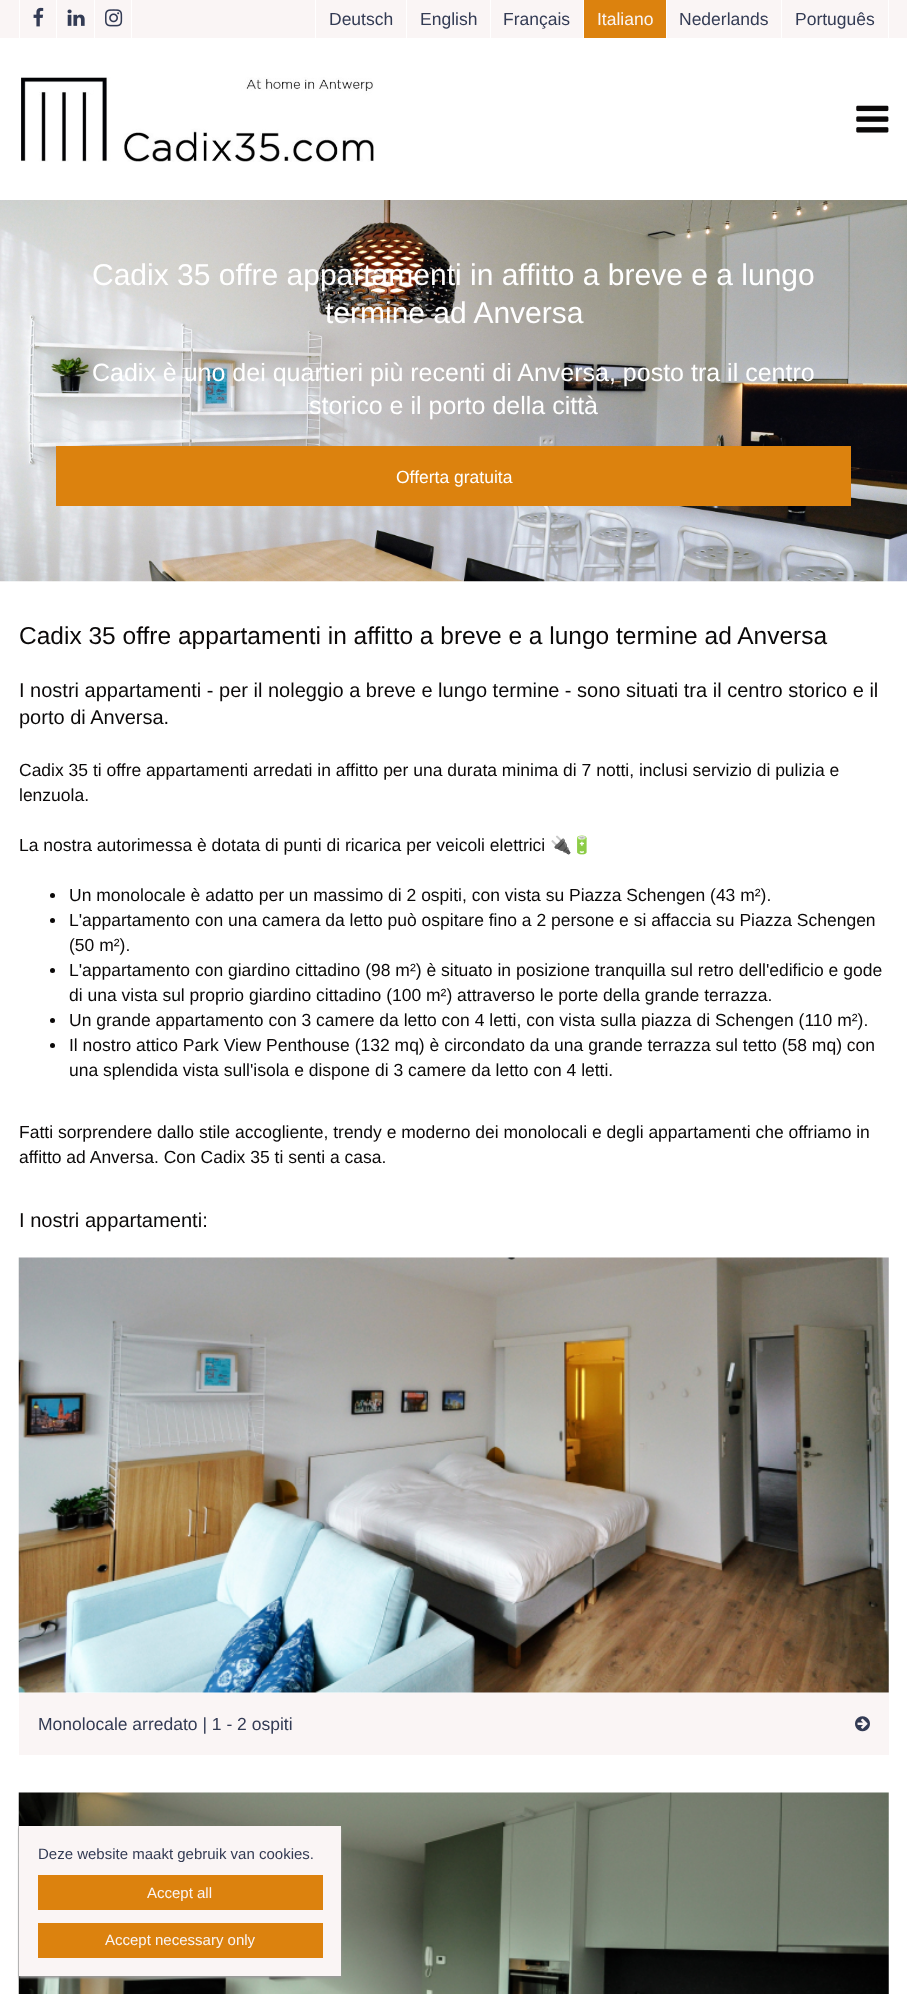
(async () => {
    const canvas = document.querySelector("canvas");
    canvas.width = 907;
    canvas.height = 1994;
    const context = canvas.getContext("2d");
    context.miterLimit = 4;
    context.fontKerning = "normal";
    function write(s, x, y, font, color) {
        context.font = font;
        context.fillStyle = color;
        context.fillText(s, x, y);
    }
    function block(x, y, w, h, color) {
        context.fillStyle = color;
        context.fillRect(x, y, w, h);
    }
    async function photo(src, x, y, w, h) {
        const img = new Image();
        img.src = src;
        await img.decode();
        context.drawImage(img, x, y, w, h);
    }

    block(0, 0, 907, 1994, "rgb(255, 255, 255)");
    block(0, 0, 907, 38, "rgb(250, 245, 245)");
    block(131, 0, 1, 38, "rgb(255, 255, 255)");
    block(19, 0, 1, 38, "rgb(255, 255, 255)");
    await photo("media/1.png", 33, 7, 11, 20);
    block(56, 0, 1, 38, "rgb(255, 255, 255)");
    await photo("media/2.png", 67, 9, 18, 17);
    block(94, 0, 1, 38, "rgb(255, 255, 255)");
    await photo("media/3.png", 105, 9, 18, 18);
    block(315, 0, 1, 38, "rgb(255, 255, 255)");
    block(406, 0, 1, 38, "rgb(255, 255, 255)");
    write("Deutsch", 329, 25, "17.5px Arimo", "rgb(51, 59, 84)");
    block(490, 0, 1, 38, "rgb(255, 255, 255)");
    write("English", 420, 25, "17.5px Arimo", "rgb(51, 59, 84)");
    block(583, 0, 1, 38, "rgb(255, 255, 255)");
    write("Français", 503, 25, "17.5px Arimo", "rgb(51, 59, 84)");
    block(584, 0, 82, 38, "rgb(220, 130, 14)");
    block(666, 0, 1, 38, "rgb(255, 255, 255)");
    write("Italiano", 597, 25, "17.5px Arimo", "rgb(250, 245, 245)");
    block(781, 0, 1, 38, "rgb(255, 255, 255)");
    write("Nederlands", 679, 25, "17.5px Arimo", "rgb(51, 59, 84)");
    block(888, 0, 1, 38, "rgb(255, 255, 255)");
    write("Português", 795, 25, "17.5px Arimo", "rgb(51, 59, 84)");
    await photo("media/4.png", 21, 77, 353, 85);
    await photo("media/5.png", 856, 105, 33, 28);
    await photo("media/6.png", 0, 200, 907, 382);
    write("Cadix 35 offre appartamenti in affitto a breve e a lungo", 92, 285, "30px Arimo", "rgb(255, 255, 255)");
    write("termine ad Anversa", 325, 323, "30px Arimo", "rgb(255, 255, 255)");
    write("Cadix è uno dei quartieri più recenti di Anversa, posto tra il centro", 92, 381, "25px Arimo", "rgb(255, 255, 255)");
    write("storico e il porto della città", 309, 414, "25px Arimo", "rgb(255, 255, 255)");
    block(56, 446, 795, 60, "rgb(220, 130, 14)");
    write("Offerta gratuita", 396, 483, "17.5px Arimo", "rgb(255, 255, 255)");
    write("Cadix 35 offre appartamenti in affitto a breve e a lungo termine ad Anversa", 19, 644, "24.5px Arimo", "rgb(11, 9, 9)");
    write("I nostri appartamenti - per il noleggio a breve e lungo termine - sono situati tra il centro storico e il", 19, 697, "20px Arimo", "rgb(11, 9, 9)");
    write("porto di Anversa.", 19, 724, "20px Arimo", "rgb(11, 9, 9)");
    write("Cadix 35 ti offre appartamenti arredati in affitto per una durata minima di 7 notti, inclusi servizio di pulizia e", 19, 776, "17.5px Arimo", "rgb(11, 9, 9)");
    write("lenzuola.", 19, 801, "17.5px Arimo", "rgb(11, 9, 9)");
    write("La nostra autorimessa è dotata di punti di ricarica per veicoli elettrici", 19, 851, "17.5px Arimo", "rgb(11, 9, 9)");
    write("🔌🔋", 550, 851, "17.5px Noto Color Emoji", "rgb(11, 9, 9)");
    context.beginPath();
    context.arc(52.5, 895.5, 2.5, 0, Math.PI * 2);
    context.fill();
    write("Un monolocale è adatto per un massimo di 2 ospiti, con vista su Piazza Schengen (43 m²).", 69, 901, "17.5px Arimo", "rgb(11, 9, 9)");
    context.beginPath();
    context.arc(52.5, 920.5, 2.5, 0, Math.PI * 2);
    context.fill();
    write("L'appartamento con una camera da letto può ospitare fino a 2 persone e si affaccia su Piazza Schengen", 69, 926, "17.5px Arimo", "rgb(11, 9, 9)");
    write("(50 m²).", 69, 951, "17.5px Arimo", "rgb(11, 9, 9)");
    context.beginPath();
    context.arc(52.5, 970.5, 2.5, 0, Math.PI * 2);
    context.fill();
    write("L'appartamento con giardino cittadino (98 m²) è situato in posizione tranquilla sul retro dell'edificio e gode", 69, 976, "17.5px Arimo", "rgb(11, 9, 9)");
    write("di una vista sul proprio giardino cittadino (100 m²) attraverso le porte della grande terrazza.", 69, 1001, "17.5px Arimo", "rgb(11, 9, 9)");
    context.beginPath();
    context.arc(52.5, 1020.5, 2.5, 0, Math.PI * 2);
    context.fill();
    write("Un grande appartamento con 3 camere da letto con 4 letti, con vista sulla piazza di Schengen (110 m²).", 69, 1026, "17.5px Arimo", "rgb(11, 9, 9)");
    context.beginPath();
    context.arc(52.5, 1045.5, 2.5, 0, Math.PI * 2);
    context.fill();
    write("Il nostro attico Park View Penthouse (132 mq) è circondato da una grande terrazza sul tetto (58 mq) con", 69, 1051, "17.5px Arimo", "rgb(11, 9, 9)");
    write("una splendida vista sull'isola e dispone di 3 camere da letto con 4 letti.", 69, 1076, "17.5px Arimo", "rgb(11, 9, 9)");
    write("Fatti sorprendere dallo stile accogliente, trendy e moderno dei monolocali e degli appartamenti che offriamo in", 19, 1138, "17.5px Arimo", "rgb(11, 9, 9)");
    write("affitto ad Anversa. Con Cadix 35 ti senti a casa.", 19, 1163, "17.5px Arimo", "rgb(11, 9, 9)");
    write("I nostri appartamenti:", 19, 1227, "20.1px Arimo", "rgb(11, 9, 9)");
    await photo("media/7.png", 18, 1257, 871, 436);
    block(19, 1693, 870, 62, "rgb(250, 245, 245)");
    write("Monolocale arredato | 1 - 2 ospiti", 38, 1730, "17.5px Arimo", "rgb(51, 59, 84)");
    await photo("media/8.png", 855, 1716, 15, 16);
    await photo("media/9.png", 18, 1792, 871, 202);
    context.fillStyle = "rgb(153, 153, 153)";
    context.filter = "blur(1px)";
    context.beginPath();
    context.rect(19, 1828, 322, 150);
    context.fill();
    context.filter = "none";
    block(19, 1826, 322, 150, "rgb(250, 245, 245)");
    write("Deze website maakt gebruik van cookies.", 38, 1859, "15px Liberation Sans", "rgb(51, 59, 84)");
    block(38, 1875, 285, 35, "rgb(220, 130, 14)");
    write("Accept all", 147, 1898, "15px Liberation Sans", "rgb(250, 245, 245)");
    block(38, 1923, 285, 35, "rgb(220, 130, 14)");
    write("Accept necessary only", 105, 1945, "15px Liberation Sans", "rgb(250, 245, 245)");
})();
